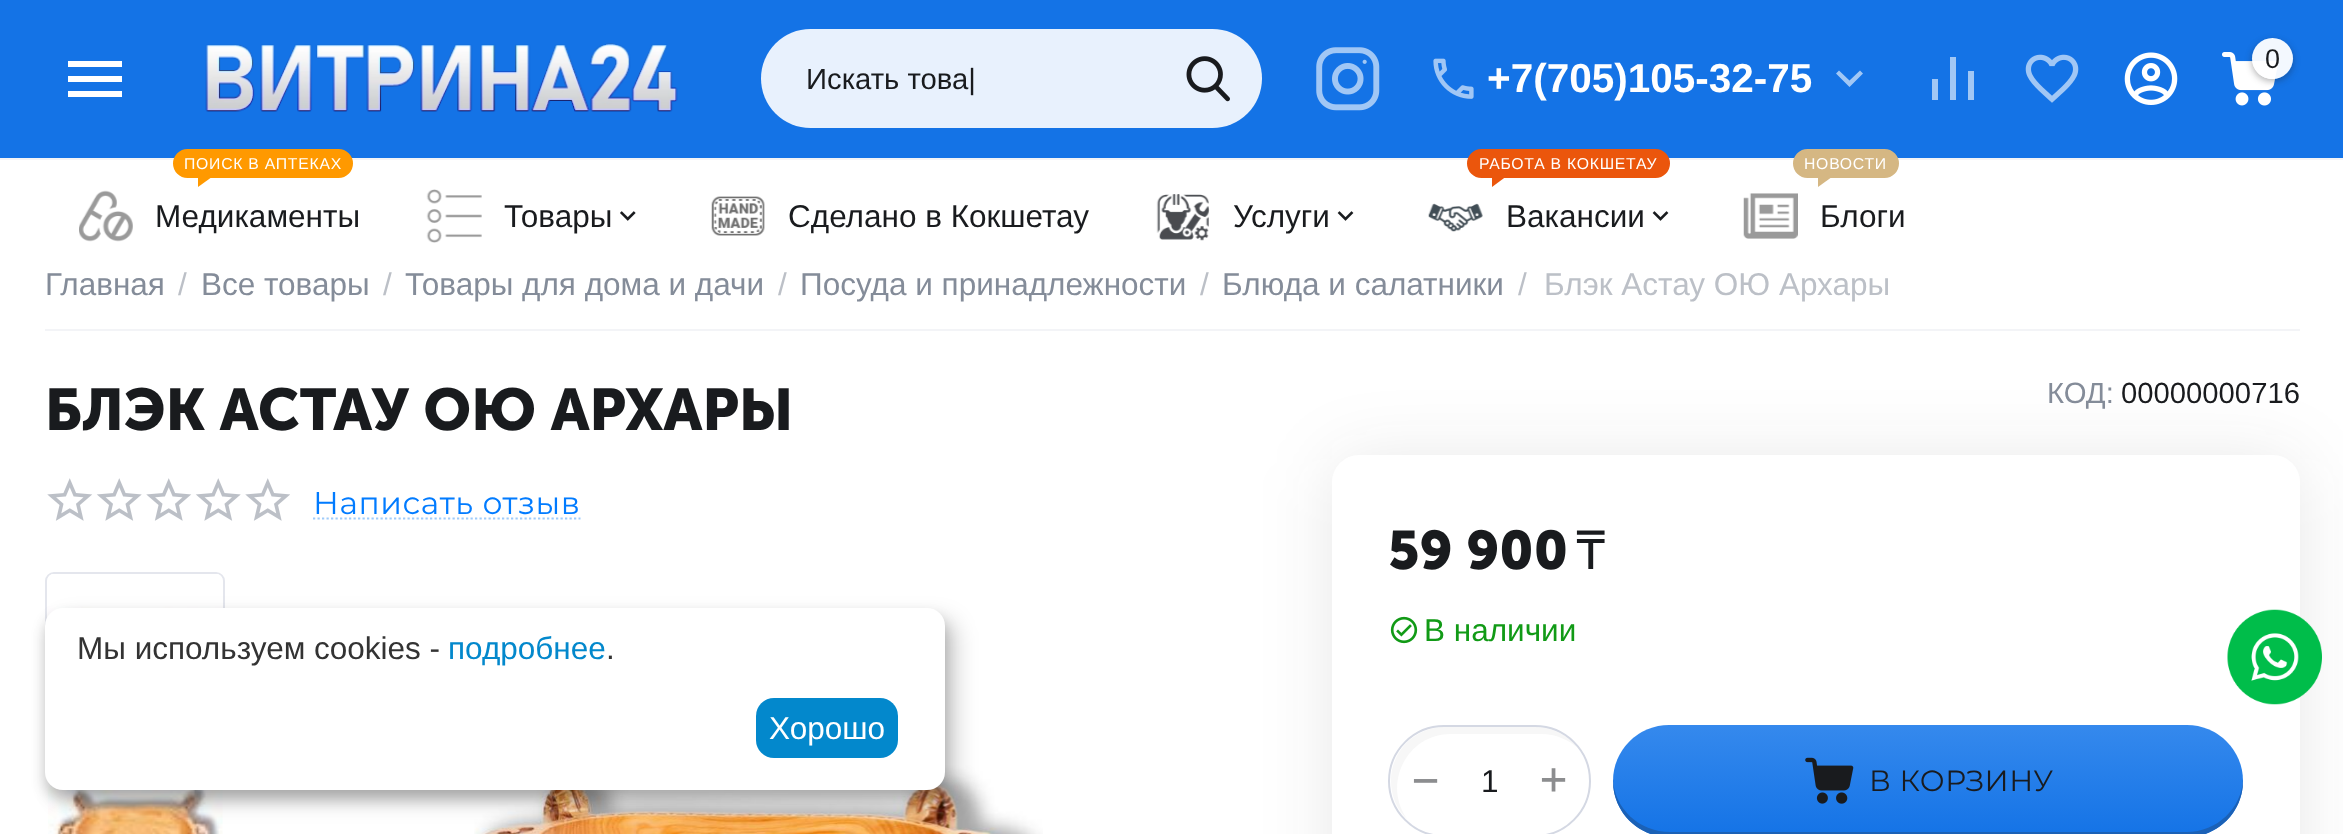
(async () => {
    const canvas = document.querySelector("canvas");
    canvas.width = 2343;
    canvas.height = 834;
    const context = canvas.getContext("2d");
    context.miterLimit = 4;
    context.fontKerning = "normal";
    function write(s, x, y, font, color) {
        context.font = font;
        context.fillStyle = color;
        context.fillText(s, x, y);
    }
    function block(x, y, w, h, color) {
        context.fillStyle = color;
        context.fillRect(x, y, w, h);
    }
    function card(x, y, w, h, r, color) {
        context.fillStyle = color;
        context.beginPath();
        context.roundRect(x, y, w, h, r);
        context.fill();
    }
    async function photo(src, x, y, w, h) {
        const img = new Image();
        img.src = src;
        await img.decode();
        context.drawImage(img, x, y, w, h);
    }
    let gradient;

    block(0, 0, 2343, 834, "rgb(255, 255, 255)");
    block(0, 0, 2343, 158, "rgb(20, 115, 230)");
    context.fillStyle = "rgb(255, 255, 255)";
    context.beginPath();
    context.moveTo(68, 97);
    context.lineTo(122, 97);
    context.lineTo(122, 91);
    context.lineTo(68, 91);
    context.closePath();
    context.moveTo(68, 82);
    context.lineTo(122, 82);
    context.lineTo(122, 76);
    context.lineTo(68, 76);
    context.closePath();
    context.moveTo(68, 61);
    context.lineTo(68, 67);
    context.lineTo(122, 67);
    context.lineTo(122, 61);
    context.closePath();
    context.fill();
    await photo("media/1.png", 205, 43, 473, 69);
    context.fillStyle = "rgb(161, 199, 245)";
    context.beginPath();
    context.moveTo(1932, 79);
    context.lineTo(1938, 79);
    context.lineTo(1938, 100);
    context.lineTo(1932, 100);
    context.closePath();
    context.moveTo(1950, 57);
    context.lineTo(1956, 57);
    context.lineTo(1956, 100);
    context.lineTo(1950, 100);
    context.closePath();
    context.moveTo(1968, 71);
    context.lineTo(1974, 71);
    context.lineTo(1974, 100);
    context.lineTo(1968, 100);
    context.closePath();
    context.fill();
    await photo("media/2.png", 2025, 54, 54, 49);
    await photo("media/3.png", 2124, 52, 54, 53);
    await photo("media/4.png", 2222, 52, 56, 54);
    context.save();
    context.beginPath();
    context.moveTo(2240, 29);
    context.lineTo(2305, 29);
    context.lineTo(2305, 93);
    context.lineTo(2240, 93);
    context.closePath();
    context.moveTo(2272.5, 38);
    context.bezierCurveTo(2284, 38, 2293, 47, 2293, 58.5);
    context.bezierCurveTo(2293, 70, 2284, 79, 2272.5, 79);
    context.bezierCurveTo(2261, 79, 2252, 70, 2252, 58.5);
    context.bezierCurveTo(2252, 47, 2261, 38, 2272.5, 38);
    context.closePath();
    context.clip("evenodd");
    context.fillStyle = "rgba(25, 27, 30, 0.35)";
    context.filter = "blur(3.5px)";
    context.beginPath();
    context.roundRect(2252, 41, 41, 40, 20);
    context.fill();
    context.filter = "none";
    context.restore();
    context.fillStyle = "rgba(255, 255, 255, 0.95)";
    context.beginPath();
    context.arc(2272.5, 58.5, 20.5, 0, Math.PI * 2);
    context.fill();
    write("0", 2265, 68, "27px Liberation Sans", "rgb(25, 27, 30)");
    card(761, 29, 501, 99, 49.5, "rgb(232, 241, 253)");
    write("Искать това|", 806, 89, "29.25px Liberation Sans", "rgb(25, 27, 30)");
    await photo("media/5.png", 1186, 56, 44, 46);
    await photo("media/6.png", 1316, 47, 64, 64);
    await photo("media/7.png", 1433, 58, 41, 41);
    write("+7(705)105-32-75", 1487, 92, "bold 40.5px Liberation Sans", "rgb(255, 255, 255)");
    context.fillStyle = "rgb(161, 199, 245)";
    context.beginPath();
    context.moveTo(1860, 70.5);
    context.lineTo(1849.5, 80.5);
    context.lineTo(1839, 70.5);
    context.lineTo(1836, 73.5);
    context.lineTo(1849.5, 87);
    context.lineTo(1863, 73.5);
    context.closePath();
    context.fill();
    block(0, 158, 2343, 2, "rgb(243, 244, 247)");
    await photo("media/8.png", 79, 190, 54, 52);
    context.fillStyle = "rgb(255, 153, 0)";
    context.beginPath();
    context.roundRect(174, 150, 178, 27, 13.5);
    context.fill();
    context.strokeStyle = "rgb(255, 153, 0)";
    context.lineWidth = 2;
    context.stroke();
    context.letterSpacing = "0.75px";
    write("ПОИСК В АПТЕКАХ", 184, 169, "15.75px Liberation Sans", "rgb(255, 255, 255)");
    context.fillStyle = "rgb(255, 153, 0)";
    context.beginPath();
    context.moveTo(198, 175.5);
    context.lineTo(214, 175.5);
    context.lineTo(198, 187);
    context.closePath();
    context.fill();
    context.letterSpacing = "0px";
    write("Медикаменты", 155, 227, "31.5px Liberation Sans", "rgb(25, 27, 30)");
    await photo("media/9.png", 426, 189, 56, 54);
    write("Товары", 504, 227, "31.5px Liberation Sans", "rgb(25, 27, 30)");
    await photo("media/10.png", 620, 211, 16, 10);
    await photo("media/11.png", 711, 196, 54, 40);
    write("Сделано в Кокшетау", 788, 227, "31.5px Liberation Sans", "rgb(25, 27, 30)");
    await photo("media/12.png", 1156, 194, 54, 47);
    write("Услуги", 1233, 227, "31.5px Liberation Sans", "rgb(25, 27, 30)");
    await photo("media/13.png", 1337, 211, 17, 10);
    await photo("media/14.png", 1428, 203, 55, 29);
    context.fillStyle = "rgb(235, 86, 12)";
    context.beginPath();
    context.roundRect(1468, 150, 201, 27, 13.5);
    context.fill();
    context.strokeStyle = "rgb(235, 86, 12)";
    context.stroke();
    context.letterSpacing = "0.75px";
    write("РАБОТА В КОКШЕТАУ", 1479, 169, "15.75px Liberation Sans", "rgb(255, 255, 255)");
    context.fillStyle = "rgb(235, 86, 12)";
    context.beginPath();
    context.moveTo(1492, 175.5);
    context.lineTo(1507.5, 175.5);
    context.lineTo(1492, 187);
    context.closePath();
    context.fill();
    context.letterSpacing = "0px";
    write("Вакансии", 1506, 227, "31.5px Liberation Sans", "rgb(25, 27, 30)");
    await photo("media/13.png", 1652, 211, 17, 10);
    await photo("media/15.png", 1743, 193, 55, 46);
    context.fillStyle = "rgb(213, 183, 131)";
    context.beginPath();
    context.roundRect(1794, 150, 104, 27, 13.5);
    context.fill();
    context.strokeStyle = "rgb(213, 183, 131)";
    context.stroke();
    context.letterSpacing = "0.75px";
    write("НОВОСТИ", 1804, 169, "15.75px Liberation Sans", "rgb(255, 255, 255)");
    context.fillStyle = "rgb(213, 183, 131)";
    context.beginPath();
    context.moveTo(1818, 175.5);
    context.lineTo(1834, 175.5);
    context.lineTo(1818, 187);
    context.closePath();
    context.fill();
    context.letterSpacing = "0px";
    write("Блоги", 1820, 227, "31.5px Liberation Sans", "rgb(25, 27, 30)");
    block(45, 329, 2255, 2, "rgb(243, 244, 247)");
    write("Главная", 45, 295, "31.5px Liberation Sans", "rgb(132, 140, 153)");
    write("/", 178, 295, "31.5px Liberation Sans", "rgb(188, 192, 199)");
    write("Все товары", 201, 295, "31.5px Liberation Sans", "rgb(132, 140, 153)");
    write("/", 383, 295, "31.5px Liberation Sans", "rgb(188, 192, 199)");
    write("Товары для дома и дачи", 405, 295, "31.5px Liberation Sans", "rgb(132, 140, 153)");
    write("/", 778, 295, "31.5px Liberation Sans", "rgb(188, 192, 199)");
    write("Посуда и принадлежности", 800, 295, "31.5px Liberation Sans", "rgb(132, 140, 153)");
    write("/", 1200, 295, "31.5px Liberation Sans", "rgb(188, 192, 199)");
    write("Блюда и салатники", 1222, 295, "31.5px Liberation Sans", "rgb(132, 140, 153)");
    write("/", 1518, 295, "31.5px Liberation Sans", "rgb(188, 192, 199)");
    write("Блэк Астау ОЮ Архары", 1544, 295, "31.5px Liberation Sans", "rgb(188, 192, 199)");
    write("БЛЭК АСТАУ ОЮ АРХАРЫ", 45, 430, "bold 58.5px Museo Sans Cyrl", "rgb(25, 27, 30)");
    await photo("media/16.png", 47, 478, 243, 43);
    context.letterSpacing = "0.6px";
    write("Написать отзыв", 313, 514, "100 31.5px Montserrat", "rgb(1, 123, 255)");
    context.beginPath();
    context.moveTo(313, 518.5);
    context.lineTo(580.5, 518.5);
    context.strokeStyle = "rgb(159, 203, 250)";
    context.lineWidth = 2.2;
    context.setLineDash([2.25, 2.25]);
    context.stroke();
    context.beginPath();
    context.roundRect(46, 573, 178, 178, 8);
    context.strokeStyle = "rgb(228, 230, 237)";
    context.lineWidth = 2;
    context.setLineDash([]);
    context.stroke();
    await photo("media/17.png", 47, 574, 176, 44);
    await photo("media/18.png", 48, 784, 175, 50);
    await photo("media/19.png", 474, 765, 569, 69);
    context.fillStyle = "rgba(25, 27, 30, 0.1)";
    context.filter = "blur(36px)";
    context.beginPath();
    context.roundRect(1332, 459, 968, 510, 27);
    context.fill();
    context.filter = "none";
    context.letterSpacing = "0px";
    write("КОД:", 2047, 403, "29.25px Liberation Sans", "rgb(132, 140, 153)");
    write("00000000716", 2121, 403, "29.25px Liberation Sans", "rgb(25, 27, 30)");
    card(1332, 455, 968, 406, 27, "rgb(255, 255, 255)");
    write("59 900", 1388, 569, "bold 54px Museo Sans Cyrl", "rgb(25, 27, 30)");
    write("₸", 1576, 569, "54px Noto Sans", "rgb(25, 27, 30)");
    await photo("media/20.png", 1390, 616, 28, 28);
    write("В наличии", 1424, 641, "31.5px Liberation Sans", "rgb(17, 154, 22)");
    context.fillStyle = "rgb(247, 247, 247)";
    context.beginPath();
    context.moveTo(1451, 734);
    context.lineTo(1541, 734);
    context.bezierCurveTo(1556, 734, 1569, 740, 1579, 749);
    context.bezierCurveTo(1569, 736, 1553, 727, 1535, 727);
    context.lineTo(1445, 727);
    context.bezierCurveTo(1415, 727, 1391, 751, 1391, 781);
    context.bezierCurveTo(1391, 796, 1397, 810, 1408, 820);
    context.bezierCurveTo(1382, 785, 1406, 734, 1451, 734);
    context.closePath();
    context.fill();
    context.beginPath();
    context.roundRect(1389, 726, 201, 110, 55);
    context.strokeStyle = "rgb(212, 216, 227)";
    context.stroke();
    write("−", 1412, 795, "45px DejaVu Sans Mono", "rgb(140, 141, 143)");
    write("1", 1481, 792, "31.5px Liberation Sans", "rgb(25, 27, 30)");
    write("+", 1540, 794, "45px DejaVu Sans Mono", "rgb(140, 141, 143)");
    gradient = context.createLinearGradient(1928, 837, 1928, 725);
    gradient.addColorStop(0, "rgb(20, 115, 230)");
    gradient.addColorStop(1, "rgb(53, 137, 237)");
    context.fillStyle = gradient;
    context.beginPath();
    context.roundRect(1613, 725, 630, 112, 56);
    context.fill();
    context.fillStyle = "rgb(27, 97, 182)";
    context.beginPath();
    context.moveTo(1613, 779);
    context.lineTo(1613, 781);
    context.bezierCurveTo(1613, 812, 1638, 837, 1669, 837);
    context.lineTo(2187, 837);
    context.bezierCurveTo(2218, 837, 2243, 812, 2243, 781);
    context.lineTo(2243, 779);
    context.bezierCurveTo(2242, 808, 2217, 832, 2187, 832);
    context.lineTo(1670, 832);
    context.bezierCurveTo(1639, 832, 1614, 808, 1613, 779);
    context.closePath();
    context.fill();
    await photo("media/21.png", 1805, 757, 49, 47);
    context.letterSpacing = "0.5px";
    write("В КОРЗИНУ", 1869, 791, "100 29.25px Montserrat", "rgb(25, 27, 30)");
    await photo("media/22.png", 2227, 609, 95, 96);
    context.fillStyle = "rgba(0, 0, 0, 0.19)";
    context.filter = "blur(11px)";
    context.beginPath();
    context.roundRect(56, 619, 900, 182, 18);
    context.fill();
    context.filter = "none";
    context.fillStyle = "rgba(0, 0, 0, 0.2)";
    context.filter = "blur(7px)";
    context.beginPath();
    context.roundRect(45, 617, 900, 182, 18);
    context.fill();
    context.filter = "none";
    card(45, 608, 900, 182, 18, "rgb(255, 255, 255)");
    context.letterSpacing = "0px";
    write("Мы используем cookies -", 77, 659, "31.5px Liberation Sans", "rgb(51, 51, 51)");
    write("подробнее", 448, 659, "31.5px Liberation Sans", "rgb(3, 136, 204)");
    write(".", 606, 659, "31.5px Liberation Sans", "rgb(51, 51, 51)");
    card(756, 698, 142, 60, 18, "rgb(3, 136, 204)");
    write("Хорошо", 769, 739, "31.5px Liberation Sans", "rgb(255, 255, 255)");
})();
